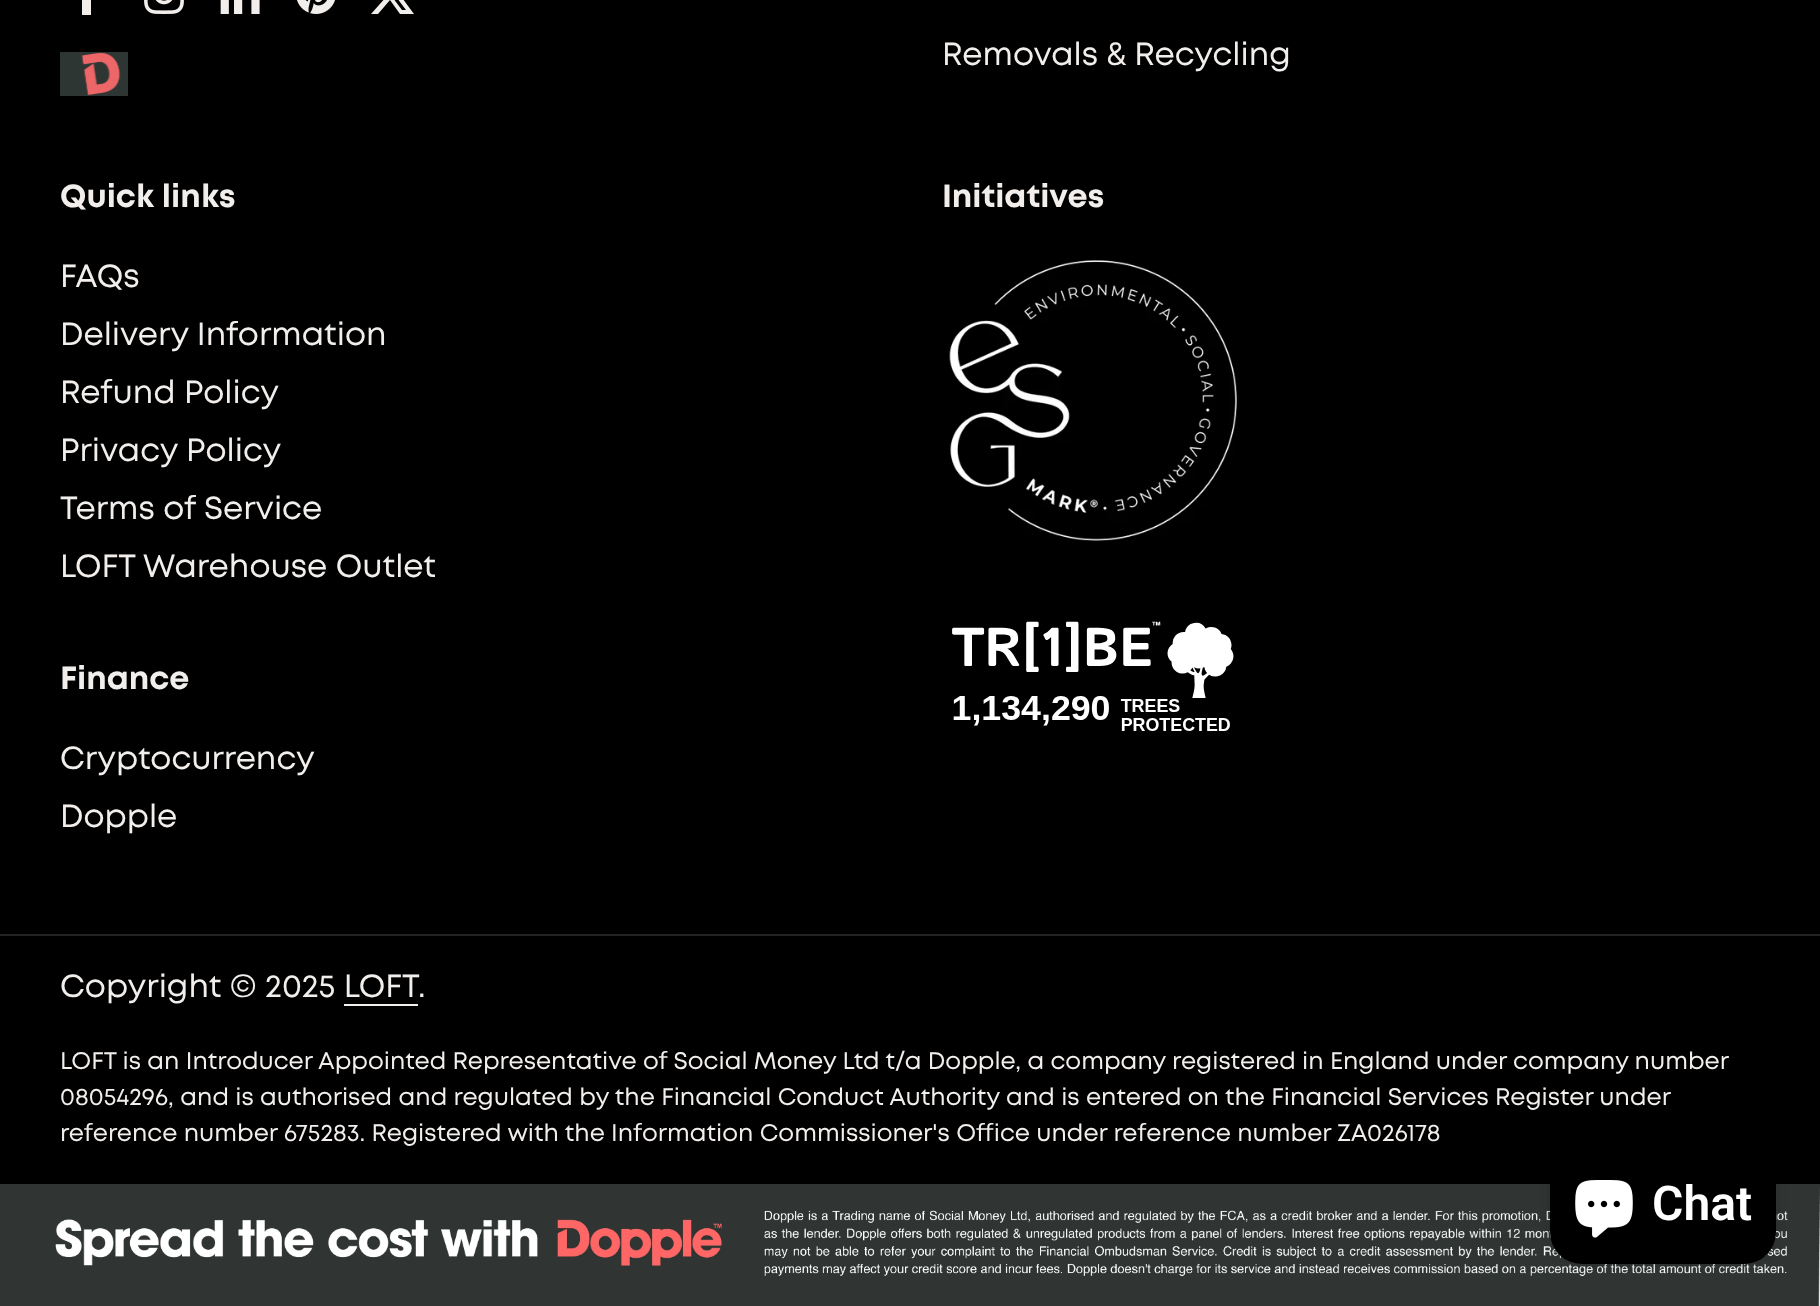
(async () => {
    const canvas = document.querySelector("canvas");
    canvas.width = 1820;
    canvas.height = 1306;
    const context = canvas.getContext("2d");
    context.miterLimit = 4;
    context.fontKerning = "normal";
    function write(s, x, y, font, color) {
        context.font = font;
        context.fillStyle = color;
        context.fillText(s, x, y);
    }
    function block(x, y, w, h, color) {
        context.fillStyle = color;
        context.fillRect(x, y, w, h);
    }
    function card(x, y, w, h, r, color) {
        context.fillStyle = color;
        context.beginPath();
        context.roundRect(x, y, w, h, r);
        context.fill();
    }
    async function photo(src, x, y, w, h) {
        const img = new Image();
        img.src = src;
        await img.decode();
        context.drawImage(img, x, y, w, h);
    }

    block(0, 0, 1820, 1306, "rgb(0, 0, 0)");
    block(82, 0, 9, 15, "rgb(241, 238, 236)");
    await photo("media/1.png", 144, 0, 40, 14);
    await photo("media/2.png", 220, 0, 40, 14);
    await photo("media/3.png", 297, 0, 38, 14);
    context.beginPath();
    context.moveTo(404, -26);
    context.lineTo(411, -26);
    context.lineTo(397, -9);
    context.lineTo(414, 14);
    context.lineTo(400, 14);
    context.lineTo(390, 0);
    context.lineTo(378, 14);
    context.lineTo(371, 14);
    context.lineTo(387, -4);
    context.lineTo(371, -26);
    context.lineTo(384, -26);
    context.lineTo(394, -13);
    context.closePath();
    context.moveTo(402, 10);
    context.lineTo(406, 10);
    context.lineTo(382, -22);
    context.lineTo(378, -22);
    context.closePath();
    context.fill();
    await photo("media/4.png", 60, 52, 68, 44);
    write("Removals & Recycling", 942, 65, "32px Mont", "rgb(241, 238, 236)");
    write("Quick links", 60, 207, "bold 32px Mont", "rgb(241, 238, 236)");
    write("FAQs", 60, 287, "32px Mont", "rgb(241, 238, 236)");
    write("Delivery Information", 60, 345, "32px Mont", "rgb(241, 238, 236)");
    write("Refund Policy", 60, 403, "32px Mont", "rgb(241, 238, 236)");
    write("Privacy Policy", 60, 461, "32px Mont", "rgb(241, 238, 236)");
    write("Terms of Service", 60, 519, "32px Mont", "rgb(241, 238, 236)");
    write("LOFT Warehouse Outlet", 60, 577, "32px Mont", "rgb(241, 238, 236)");
    write("Finance", 60, 689, "bold 32px Mont", "rgb(241, 238, 236)");
    write("Cryptocurrency", 60, 769, "32px Mont", "rgb(241, 238, 236)");
    write("Dopple", 60, 827, "32px Mont", "rgb(241, 238, 236)");
    write("Initiatives", 942, 207, "bold 32px Mont", "rgb(241, 238, 236)");
    await photo("media/5.png", 949, 260, 290, 281);
    await photo("media/6.png", 952, 621, 282, 110);
    block(0, 934, 1820, 2, "rgb(36, 36, 35)");
    write("Copyright © 2025 LOFT", 60, 997, "32px Mont", "rgb(241, 238, 236)");
    write(".", 418, 997, "32px Mont", "rgb(241, 238, 236)");
    block(344, 1004, 74, 2, "rgb(241, 238, 236)");
    write("LOFT is an Introducer Appointed Representative of Social Money Ltd t/a Dopple, a company registered in England under company number", 60, 1069, "24px Mont", "rgb(241, 238, 236)");
    write("08054296, and is authorised and regulated by the Financial Conduct Authority and is entered on the Financial Services Register under", 60, 1105, "24px Mont", "rgb(241, 238, 236)");
    write("reference number 675283. Registered with the Information Commissioner's Office under reference number ZA026178", 60, 1141, "24px Mont", "rgb(241, 238, 236)");
    await photo("media/7.png", 0, 1184, 1820, 122);
    context.fillStyle = "rgba(0, 0, 0, 0.15)";
    context.filter = "blur(5px)";
    context.beginPath();
    context.roundRect(1550, 1144, 226, 120, 32);
    context.fill();
    context.filter = "none";
    card(1550, 1144, 226, 120, 32, "rgb(0, 0, 0)");
    await photo("media/8.png", 1575, 1180, 58, 58);
    write("Chat", 1652, 1220, "600 48px Roboto", "rgb(255, 255, 255)");
})();
